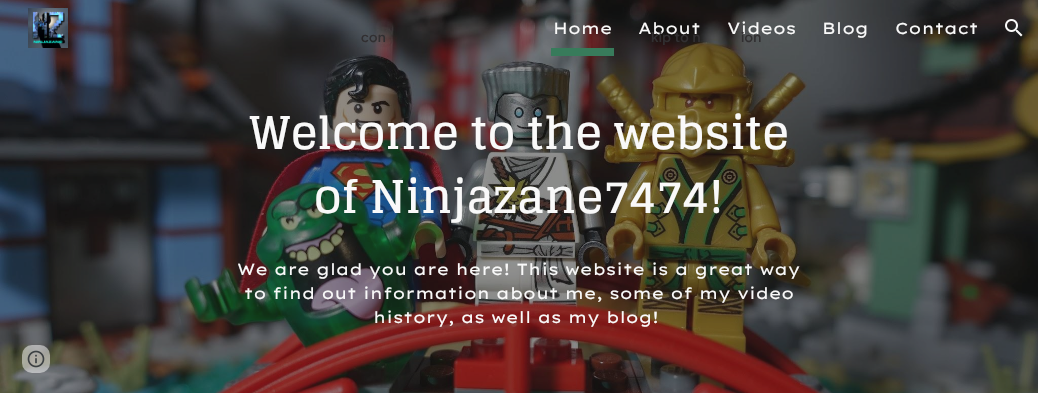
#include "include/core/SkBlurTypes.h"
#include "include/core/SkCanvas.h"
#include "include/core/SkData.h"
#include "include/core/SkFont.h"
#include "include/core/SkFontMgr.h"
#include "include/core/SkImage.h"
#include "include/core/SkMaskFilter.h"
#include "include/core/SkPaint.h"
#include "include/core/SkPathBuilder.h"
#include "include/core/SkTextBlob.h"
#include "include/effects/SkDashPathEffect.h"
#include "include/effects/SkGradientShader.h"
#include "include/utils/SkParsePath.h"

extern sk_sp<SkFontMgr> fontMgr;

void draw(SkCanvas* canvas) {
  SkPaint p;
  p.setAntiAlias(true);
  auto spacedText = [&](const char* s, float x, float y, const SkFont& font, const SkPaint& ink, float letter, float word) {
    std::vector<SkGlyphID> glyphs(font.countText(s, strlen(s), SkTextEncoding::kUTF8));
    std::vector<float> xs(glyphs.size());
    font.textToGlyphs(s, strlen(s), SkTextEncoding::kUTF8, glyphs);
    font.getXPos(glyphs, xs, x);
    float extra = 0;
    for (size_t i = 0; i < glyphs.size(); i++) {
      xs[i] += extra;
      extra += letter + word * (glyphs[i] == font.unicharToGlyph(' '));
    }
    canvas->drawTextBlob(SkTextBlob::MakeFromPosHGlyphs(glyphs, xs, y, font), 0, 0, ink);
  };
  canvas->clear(SK_ColorWHITE);
  canvas->drawImageRect(SkImages::DeferredFromEncodedData(SkData::MakeFromFileName("images/3.png")), SkRect::MakeLTRB(0, 0, 1038, 393), SkSamplingOptions());
  canvas->drawImageRect(SkImages::DeferredFromEncodedData(SkData::MakeFromFileName("images/1.png")), SkRect::MakeLTRB(28, 8, 68, 48), SkSamplingOptions());
  p.setColor(SkColorSetRGB(56, 123, 91));
  canvas->drawRect(SkRect::MakeLTRB(551, 48, 614, 56), p);
  canvas->drawImageRect(SkImages::DeferredFromEncodedData(SkData::MakeFromFileName("images/2.png")), SkRect::MakeLTRB(1005, 19, 1023, 37), SkSamplingOptions());
  p.setColor(SkColorSetARGB(128, 255, 255, 255));
  canvas->drawRoundRect(SkRect::MakeLTRB(22, 345, 50, 373), 10, 10, p);
  canvas->drawImageRect(SkImages::DeferredFromEncodedData(SkData::MakeFromFileName("images/4.png")), SkRect::MakeLTRB(27, 350, 45, 368), SkSamplingOptions());
  SkFont font1(fontMgr->matchFamilyStyle("Lexend Giga", SkFontStyle::Normal()), 16);
  font1.setSubpixel(true);
  p.setColor(SkColorSetRGB(249, 249, 249));
  canvas->drawString("Home", 553, 34, font1, p);
  canvas->drawString("About", 638, 34, font1, p);
  canvas->drawString("Videos", 727, 34, font1, p);
  canvas->drawString("Blog", 822, 34, font1, p);
  canvas->drawString("Contact", 895, 34, font1, p);
  SkFont font2(fontMgr->matchFamilyStyle("Glegoo", SkFontStyle::Bold()), 45.25f);
  font2.setSubpixel(true);
  canvas->drawString("Welcome to the website", 249, 149, font2, p);
  canvas->drawString("of Ninjazane7474!", 314, 213, font2, p);
  canvas->drawString("We are glad you are here! This website is a great way", 237, 275, font1, p);
  canvas->drawString("to find out information about me, some of my video", 244, 299, font1, p);
  canvas->drawString("history, as well as my blog!", 373, 323, font1, p);
  SkFont font3(fontMgr->matchFamilyStyle("Google Sans", SkFontStyle(500, SkFontStyle::kNormal_Width, SkFontStyle::kUpright_Slant)), 14);
  font3.setSubpixel(true);
  p.setColor(SkColorSetRGB(49, 47, 49));
  spacedText("con", 361, 42, font3, p, 0.25f, 0);
  spacedText("kip to n", 651, 42, font3, p, 0.25f, 0);
  spacedText("ion", 741, 42, font3, p, 0.25f, 0);
}
